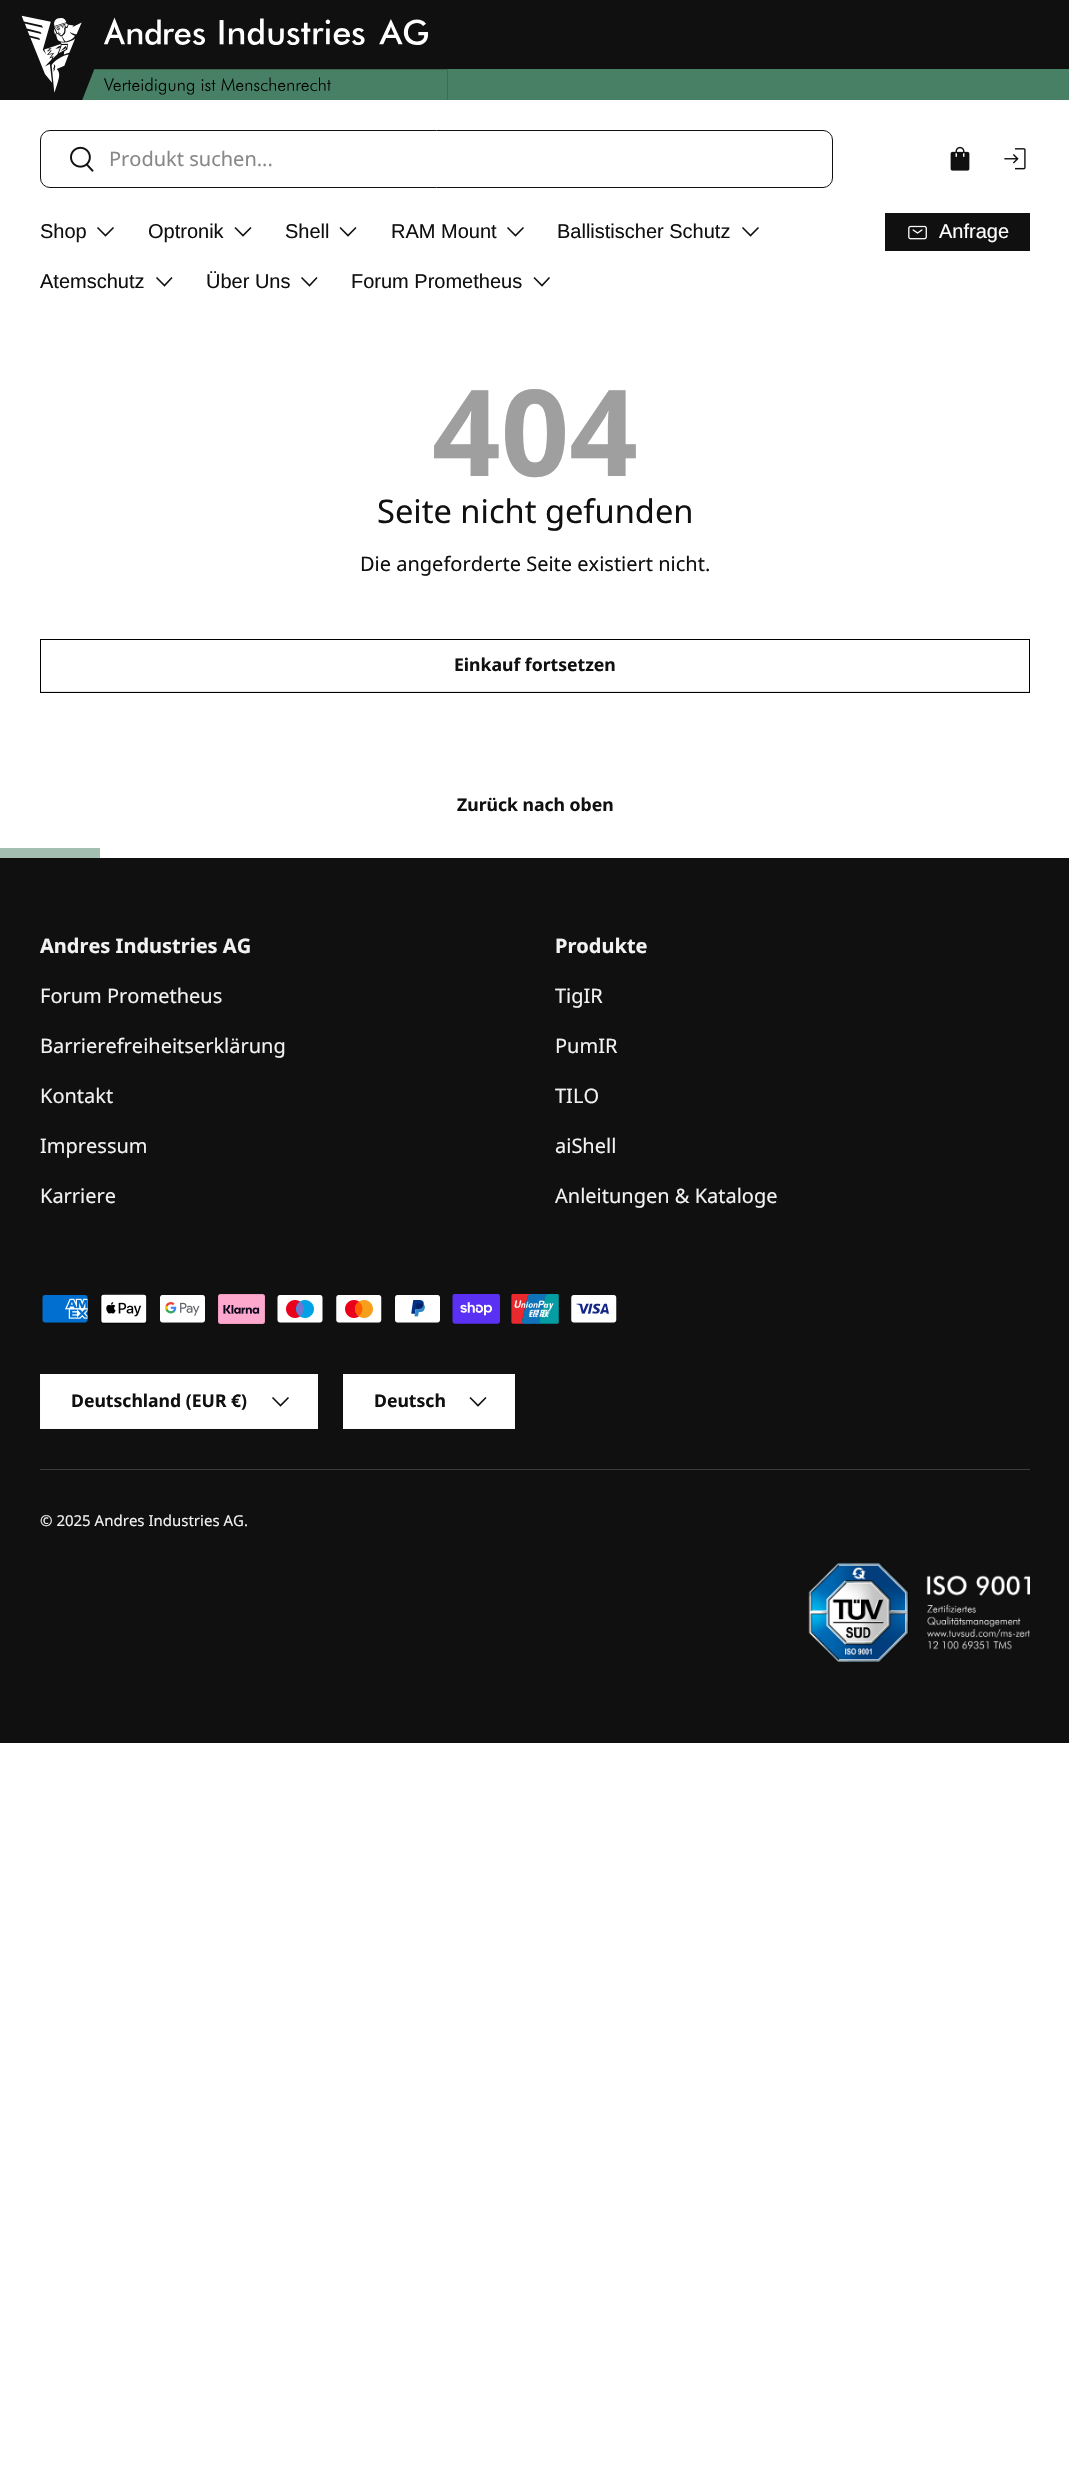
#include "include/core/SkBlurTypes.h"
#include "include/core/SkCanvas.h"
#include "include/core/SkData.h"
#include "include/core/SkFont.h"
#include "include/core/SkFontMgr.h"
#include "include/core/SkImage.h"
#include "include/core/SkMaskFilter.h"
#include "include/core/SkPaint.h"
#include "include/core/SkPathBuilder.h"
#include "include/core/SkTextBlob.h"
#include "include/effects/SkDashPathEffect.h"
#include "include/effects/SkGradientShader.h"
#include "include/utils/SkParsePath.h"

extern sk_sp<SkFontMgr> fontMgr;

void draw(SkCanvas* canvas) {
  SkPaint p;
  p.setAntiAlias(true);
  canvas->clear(SK_ColorWHITE);
  p.setColor(SkColorSetRGB(72, 128, 102));
  canvas->drawRect(SkRect::MakeLTRB(447, 69, 1069, 100), p);
  p.setColor(SkColorSetRGB(16, 16, 16));
  canvas->drawRect(SkRect::MakeLTRB(0, 0, 1069, 69), p);
  canvas->drawImageRect(SkImages::DeferredFromEncodedData(SkData::MakeFromFileName("images/1.png")), SkRect::MakeLTRB(0, 15, 448, 100), SkSamplingOptions());
  p.setStyle(SkPaint::kStroke_Style);
  p.setStrokeWidth(1);
  canvas->drawRoundRect(SkRect::MakeLTRB(40.5f, 130.5f, 832.5f, 187.5f), 9.5f, 9.5f, p);
  canvas->drawImageRect(SkImages::DeferredFromEncodedData(SkData::MakeFromFileName("images/2.png")), SkRect::MakeLTRB(70, 146, 94, 172), SkSamplingOptions());
  canvas->drawImageRect(SkImages::DeferredFromEncodedData(SkData::MakeFromFileName("images/3.png")), SkRect::MakeLTRB(950, 146, 970, 171), SkSamplingOptions());
  canvas->drawImageRect(SkImages::DeferredFromEncodedData(SkData::MakeFromFileName("images/4.png")), SkRect::MakeLTRB(1004, 148, 1026, 170), SkSamplingOptions());
  p.setStrokeWidth(1.6f);
  canvas->drawPath(SkPathBuilder().moveTo(113.5f, 227.5f).lineTo(105.5f, 235.5f).lineTo(97.5f, 227.5f).detach(), p);
  canvas->drawPath(SkPathBuilder().moveTo(251, 227.5f).lineTo(243, 235.5f).lineTo(235, 227.5f).detach(), p);
  canvas->drawPath(SkPathBuilder().moveTo(356, 227.5f).lineTo(348, 235.5f).lineTo(340, 227.5f).detach(), p);
  canvas->drawPath(SkPathBuilder().moveTo(523.5f, 227.5f).lineTo(515.5f, 235.5f).lineTo(507.5f, 227.5f).detach(), p);
  canvas->drawPath(SkPathBuilder().moveTo(758.5f, 227.5f).lineTo(750.5f, 235.5f).lineTo(742.5f, 227.5f).detach(), p);
  canvas->drawPath(SkPathBuilder().moveTo(172, 277.5f).lineTo(164.5f, 285.5f).lineTo(156.5f, 277.5f).detach(), p);
  canvas->drawPath(SkPathBuilder().moveTo(317, 277.5f).lineTo(309.5f, 285.5f).lineTo(301.5f, 277.5f).detach(), p);
  canvas->drawPath(SkPathBuilder().moveTo(549.5f, 277.5f).lineTo(542, 285.5f).lineTo(534, 277.5f).detach(), p);
  p.setStyle(SkPaint::kFill_Style);
  {
    const SkColor colors[] = {SkColorSetRGB(60, 60, 60), SkColorSetRGB(16, 16, 16), SkColorSetRGB(16, 16, 16)};
    const float stops[] = {0.6f, 0.6f, 1};
    const SkPoint ends[] = {{616, 182}, {1019, 282}};
    p.setShader(SkGradientShader::MakeLinear(ends, colors, stops, 3, SkTileMode::kClamp));
    p.setAlpha(255);
  }
  canvas->drawRect(SkRect::MakeLTRB(888, 216, 1027, 248), p);
  p.setStyle(SkPaint::kStroke_Style);
  p.setStrokeWidth(3);
  p.setShader(nullptr);
  p.setColor(SkColorSetRGB(16, 16, 16));
  canvas->drawRect(SkRect::MakeLTRB(886.5f, 214.5f, 1028.5f, 249.5f), p);
  canvas->drawImageRect(SkImages::DeferredFromEncodedData(SkData::MakeFromFileName("images/5.png")), SkRect::MakeLTRB(908, 225, 927, 240), SkSamplingOptions());
  p.setStyle(SkPaint::kFill_Style);
  p.setColor(SkColorSetRGB(227, 227, 227));
  canvas->drawRect(SkRect::MakeLTRB(41, 691, 1029, 692), p);
  p.setStyle(SkPaint::kStroke_Style);
  p.setStrokeWidth(1);
  p.setColor(SK_ColorBLACK);
  canvas->drawRect(SkRect::MakeLTRB(40.5f, 639.5f, 1029.5f, 692.5f), p);
  p.setStyle(SkPaint::kFill_Style);
  p.setColor(SkColorSetRGB(162, 191, 178));
  canvas->drawRect(SkRect::MakeLTRB(0, 848, 100, 858), p);
  p.setColor(SkColorSetRGB(16, 16, 16));
  canvas->drawRect(SkRect::MakeLTRB(0, 858, 1069, 1743), p);
  canvas->drawImageRect(SkImages::DeferredFromEncodedData(SkData::MakeFromFileName("images/6.png")), SkRect::MakeLTRB(42, 1295, 88, 1323), SkSamplingOptions());
  canvas->drawImageRect(SkImages::DeferredFromEncodedData(SkData::MakeFromFileName("images/7.png")), SkRect::MakeLTRB(100, 1294, 147, 1324), SkSamplingOptions());
  canvas->drawImageRect(SkImages::DeferredFromEncodedData(SkData::MakeFromFileName("images/8.png")), SkRect::MakeLTRB(160, 1295, 205, 1323), SkSamplingOptions());
  canvas->drawImageRect(SkImages::DeferredFromEncodedData(SkData::MakeFromFileName("images/9.png")), SkRect::MakeLTRB(218, 1294, 265, 1324), SkSamplingOptions());
  canvas->drawImageRect(SkImages::DeferredFromEncodedData(SkData::MakeFromFileName("images/10.png")), SkRect::MakeLTRB(277, 1295, 323, 1323), SkSamplingOptions());
  canvas->drawImageRect(SkImages::DeferredFromEncodedData(SkData::MakeFromFileName("images/11.png")), SkRect::MakeLTRB(336, 1295, 382, 1323), SkSamplingOptions());
  canvas->drawImageRect(SkImages::DeferredFromEncodedData(SkData::MakeFromFileName("images/12.png")), SkRect::MakeLTRB(395, 1295, 440, 1323), SkSamplingOptions());
  canvas->drawImageRect(SkImages::DeferredFromEncodedData(SkData::MakeFromFileName("images/13.png")), SkRect::MakeLTRB(452, 1294, 500, 1324), SkSamplingOptions());
  canvas->drawImageRect(SkImages::DeferredFromEncodedData(SkData::MakeFromFileName("images/14.png")), SkRect::MakeLTRB(511, 1294, 559, 1324), SkSamplingOptions());
  canvas->drawImageRect(SkImages::DeferredFromEncodedData(SkData::MakeFromFileName("images/15.png")), SkRect::MakeLTRB(571, 1295, 617, 1323), SkSamplingOptions());
  p.setColor(SK_ColorWHITE);
  canvas->drawRect(SkRect::MakeLTRB(40.5f, 1374.5f, 317.5f, 1428.5f), p);
  p.setStyle(SkPaint::kStroke_Style);
  p.setColor(SkColorSetRGB(252, 252, 252));
  canvas->drawRect(SkRect::MakeLTRB(40.5f, 1374.5f, 317.5f, 1428.5f), p);
  p.setStrokeWidth(1.6f);
  p.setColor(SkColorSetRGB(16, 16, 16));
  canvas->drawPath(SkPathBuilder().moveTo(288.5f, 1397.5f).lineTo(280.5f, 1405.5f).lineTo(272.5f, 1397.5f).detach(), p);
  p.setStyle(SkPaint::kFill_Style);
  p.setColor(SK_ColorWHITE);
  canvas->drawRect(SkRect::MakeLTRB(343.5f, 1374.5f, 514.5f, 1428.5f), p);
  p.setStyle(SkPaint::kStroke_Style);
  p.setStrokeWidth(1);
  p.setColor(SkColorSetRGB(252, 252, 252));
  canvas->drawRect(SkRect::MakeLTRB(343.5f, 1374.5f, 514.5f, 1428.5f), p);
  p.setStrokeWidth(1.6f);
  p.setColor(SkColorSetRGB(16, 16, 16));
  canvas->drawPath(SkPathBuilder().moveTo(486, 1397.5f).lineTo(478, 1405.5f).lineTo(470, 1397.5f).detach(), p);
  p.setStyle(SkPaint::kFill_Style);
  p.setColor(SkColorSetRGB(61, 61, 61));
  canvas->drawRect(SkRect::MakeLTRB(40, 1469, 1030, 1470), p);
  canvas->drawImageRect(SkImages::DeferredFromEncodedData(SkData::MakeFromFileName("images/16.png")), SkRect::MakeLTRB(808, 1562, 1030, 1663), SkSamplingOptions());
  SkFont font1(fontMgr->matchFamilyStyle("Noto Sans", SkFontStyle::Normal()), 20);
  font1.setSubpixel(true);
  p.setColor(SkColorSetRGB(136, 136, 136));
  canvas->drawString("Produkt suchen...", 109, 166, font1, p);
  SkFont font2(fontMgr->matchFamilyStyle("Liberation Sans", SkFontStyle::Normal()), 20);
  font2.setSubpixel(true);
  p.setColor(SkColorSetRGB(16, 16, 16));
  canvas->drawString("Shop", 40, 238, font2, p);
  canvas->drawString("Optronik", 148, 238, font2, p);
  canvas->drawString("Shell", 285, 238, font2, p);
  canvas->drawString("RAM Mount", 391, 238, font2, p);
  canvas->drawString("Ballistischer Schutz", 557, 238, font2, p);
  canvas->drawString("Atemschutz", 40, 288, font2, p);
  canvas->drawString("Über Uns", 206, 288, font2, p);
  canvas->drawString("Forum Prometheus", 351, 288, font2, p);
  p.setColor(SK_ColorWHITE);
  canvas->drawString("Anfrage", 939, 238, font2, p);
  SkFont font3(fontMgr->matchFamilyStyle("Noto Sans", SkFontStyle::Bold()), 120);
  font3.setSubpixel(true);
  p.setColor(SkColorSetRGB(159, 159, 159));
  canvas->drawString("404", 432, 476, font3, p);
  SkFont font4(fontMgr->matchFamilyStyle("Noto Sans", SkFontStyle::Normal()), 32.6f);
  font4.setSubpixel(true);
  p.setColor(SkColorSetRGB(16, 16, 16));
  canvas->drawString("Seite nicht gefunden", 377, 523, font4, p);
  canvas->drawString("Die angeforderte Seite existiert nicht.", 360, 571, font1, p);
  SkFont font5(fontMgr->matchFamilyStyle("Noto Sans", SkFontStyle::Bold()), 17.6f);
  font5.setSubpixel(true);
  canvas->drawString("Einkauf fortsetzen", 454, 671, font5, p);
  canvas->drawString("Zurück nach oben", 457, 811, font5, p);
  SkFont font6(fontMgr->matchFamilyStyle("Noto Sans", SkFontStyle::Bold()), 20);
  font6.setSubpixel(true);
  p.setColor(SkColorSetRGB(242, 242, 242));
  canvas->drawString("Andres Industries AG", 40, 953, font6, p);
  canvas->drawString("Forum Prometheus", 40, 1003, font1, p);
  canvas->drawString("Barrierefreiheitserklärung", 40, 1053, font1, p);
  canvas->drawString("Kontakt", 40, 1103, font1, p);
  canvas->drawString("Impressum", 40, 1153, font1, p);
  canvas->drawString("Karriere", 40, 1203, font1, p);
  canvas->drawString("Produkte", 555, 953, font6, p);
  canvas->drawString("TigIR", 555, 1003, font1, p);
  canvas->drawString("PumIR", 555, 1053, font1, p);
  canvas->drawString("TILO", 555, 1103, font1, p);
  canvas->drawString("aiShell", 555, 1153, font1, p);
  canvas->drawString("Anleitungen & Kataloge", 555, 1203, font1, p);
  p.setColor(SkColorSetRGB(16, 16, 16));
  canvas->drawString("Deutschland (EUR €)", 71, 1407, font5, p);
  canvas->drawString("Deutsch", 374, 1407, font5, p);
  SkFont font7(fontMgr->matchFamilyStyle("Noto Sans", SkFontStyle::Normal()), 15);
  font7.setSubpixel(true);
  p.setColor(SkColorSetRGB(242, 242, 242));
  canvas->drawString("© 2025 Andres Industries AG.", 40, 1526, font7, p);
}
